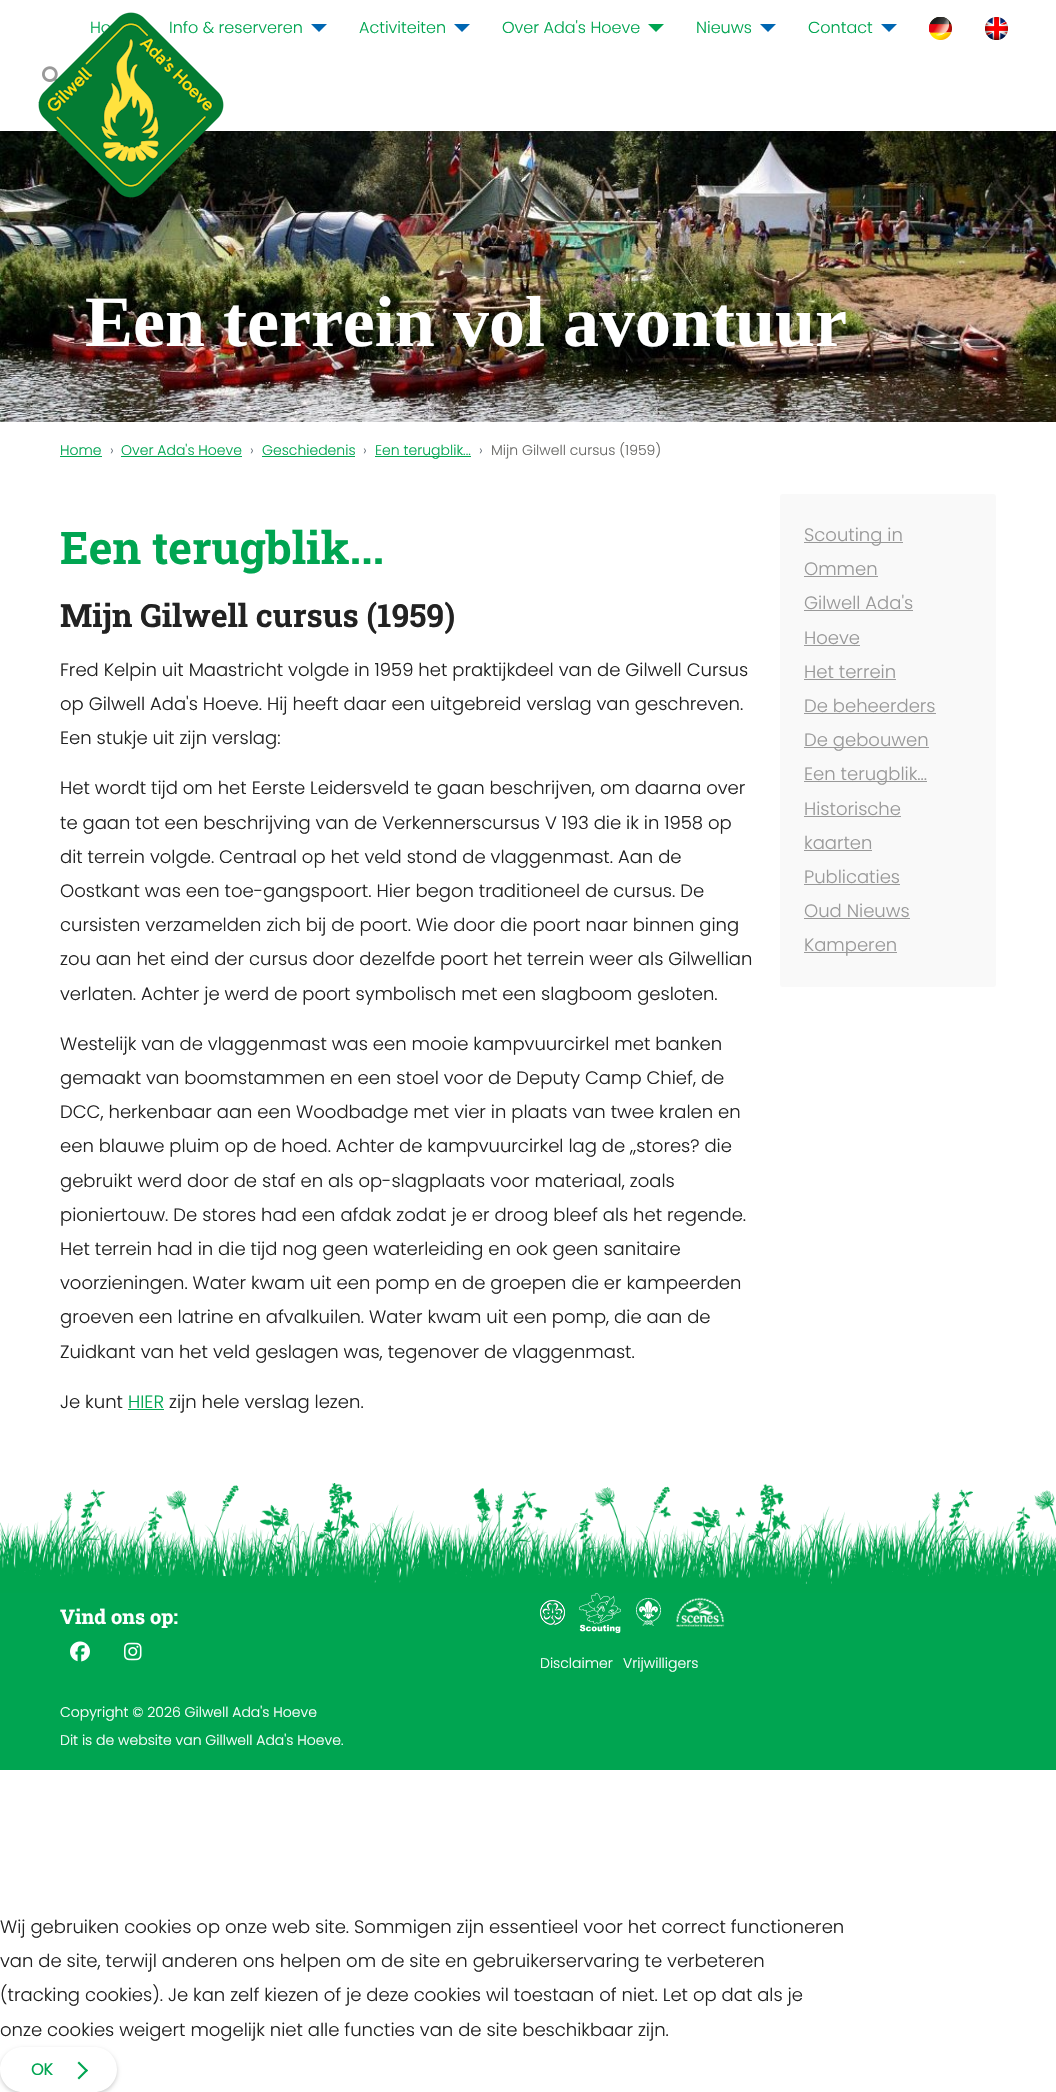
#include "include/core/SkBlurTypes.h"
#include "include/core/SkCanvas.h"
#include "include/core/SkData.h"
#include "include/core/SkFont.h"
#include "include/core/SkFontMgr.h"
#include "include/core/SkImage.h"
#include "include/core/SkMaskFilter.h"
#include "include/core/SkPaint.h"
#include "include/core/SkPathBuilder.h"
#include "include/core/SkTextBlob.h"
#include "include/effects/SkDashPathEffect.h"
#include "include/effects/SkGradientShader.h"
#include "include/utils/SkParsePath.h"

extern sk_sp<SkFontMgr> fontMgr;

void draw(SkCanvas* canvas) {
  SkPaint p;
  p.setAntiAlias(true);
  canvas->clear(SK_ColorWHITE);
  canvas->drawImageRect(SkImages::DeferredFromEncodedData(SkData::MakeFromFileName("images/5.png")), SkRect::MakeLTRB(0, 131, 1056, 422), SkSamplingOptions());
  p.setColor(SkColorSetARGB(51, 0, 0, 0));
  p.setMaskFilter(SkMaskFilter::MakeBlur(kNormal_SkBlurStyle, 2.5f));
  canvas->drawRect(SkRect::MakeLTRB(0, 0, 1056, 131), p);
  p.setMaskFilter(nullptr);
  p.setColor(SK_ColorWHITE);
  canvas->drawRect(SkRect::MakeLTRB(0, 0, 1056, 131), p);
  p.setColor(SkColorSetRGB(0, 102, 178));
  canvas->drawPath(SkPathBuilder().moveTo(311, 24).lineTo(327, 24).lineTo(319, 32).close().detach(), p);
  canvas->drawPath(SkPathBuilder().moveTo(454, 24).lineTo(470, 24).lineTo(462, 32).close().detach(), p);
  p.setColor(SkColorSetRGB(0, 165, 81));
  canvas->drawPath(SkPathBuilder().moveTo(648, 24).lineTo(664, 24).lineTo(656, 32).close().detach(), p);
  p.setColor(SkColorSetRGB(0, 102, 178));
  canvas->drawPath(SkPathBuilder().moveTo(760, 24).lineTo(776, 24).lineTo(768, 32).close().detach(), p);
  canvas->drawPath(SkPathBuilder().moveTo(881, 24).lineTo(897, 24).lineTo(889, 32).close().detach(), p);
  canvas->drawImageRect(SkImages::DeferredFromEncodedData(SkData::MakeFromFileName("images/2.png")), SkRect::MakeLTRB(929, 17, 952, 40), SkSamplingOptions());
  canvas->drawImageRect(SkImages::DeferredFromEncodedData(SkData::MakeFromFileName("images/3.png")), SkRect::MakeLTRB(985, 17, 1008, 40), SkSamplingOptions());
  canvas->drawImageRect(SkImages::DeferredFromEncodedData(SkData::MakeFromFileName("images/4.png")), SkRect::MakeLTRB(42, 66, 58, 82), SkSamplingOptions());
  p.setColor(SkColorSetRGB(0, 165, 81));
  canvas->drawRect(SkRect::MakeLTRB(60, 456, 102, 457), p);
  canvas->drawRect(SkRect::MakeLTRB(121, 456, 242, 457), p);
  canvas->drawRect(SkRect::MakeLTRB(262, 456, 355, 457), p);
  canvas->drawRect(SkRect::MakeLTRB(375, 456, 471, 457), p);
  canvas->drawRect(SkRect::MakeLTRB(128, 1409, 164, 1410), p);
  p.setColor(SkColorSetRGB(249, 249, 249));
  canvas->drawRoundRect(SkRect::MakeLTRB(780, 494, 996, 987), 3, 3, p);
  p.setColor(SkColorSetRGB(153, 153, 153));
  canvas->drawRect(SkRect::MakeLTRB(804, 542, 903, 543), p);
  canvas->drawRect(SkRect::MakeLTRB(804, 576, 878, 577), p);
  canvas->drawRect(SkRect::MakeLTRB(804, 610, 913, 611), p);
  canvas->drawRect(SkRect::MakeLTRB(804, 645, 860, 646), p);
  canvas->drawRect(SkRect::MakeLTRB(804, 679, 896, 680), p);
  canvas->drawRect(SkRect::MakeLTRB(804, 713, 936, 714), p);
  canvas->drawRect(SkRect::MakeLTRB(804, 747, 929, 748), p);
  canvas->drawRect(SkRect::MakeLTRB(804, 781, 927, 782), p);
  canvas->drawRect(SkRect::MakeLTRB(804, 816, 901, 817), p);
  canvas->drawRect(SkRect::MakeLTRB(804, 850, 872, 851), p);
  canvas->drawRect(SkRect::MakeLTRB(804, 884, 900, 885), p);
  canvas->drawRect(SkRect::MakeLTRB(804, 918, 910, 919), p);
  canvas->drawRect(SkRect::MakeLTRB(804, 952, 897, 953), p);
  canvas->drawImageRect(SkImages::DeferredFromEncodedData(SkData::MakeFromFileName("images/6.png")), SkRect::MakeLTRB(0, 1483, 1056, 1593), SkSamplingOptions());
  p.setColor(SkColorSetRGB(0, 165, 81));
  canvas->drawRect(SkRect::MakeLTRB(0, 1593, 1056, 1770), p);
  canvas->drawImageRect(SkImages::DeferredFromEncodedData(SkData::MakeFromFileName("images/7.png")), SkRect::MakeLTRB(70, 1641, 90, 1662), SkSamplingOptions());
  canvas->drawImageRect(SkImages::DeferredFromEncodedData(SkData::MakeFromFileName("images/8.png")), SkRect::MakeLTRB(124, 1642, 142, 1661), SkSamplingOptions());
  canvas->drawImageRect(SkImages::DeferredFromEncodedData(SkData::MakeFromFileName("images/9.png")), SkRect::MakeLTRB(540, 1600, 565, 1625), SkSamplingOptions());
  canvas->drawImageRect(SkImages::DeferredFromEncodedData(SkData::MakeFromFileName("images/10.png")), SkRect::MakeLTRB(579, 1593, 621, 1633), SkSamplingOptions());
  canvas->drawImageRect(SkImages::DeferredFromEncodedData(SkData::MakeFromFileName("images/11.png")), SkRect::MakeLTRB(636, 1598, 661, 1626), SkSamplingOptions());
  canvas->drawImageRect(SkImages::DeferredFromEncodedData(SkData::MakeFromFileName("images/12.png")), SkRect::MakeLTRB(676, 1597, 725, 1627), SkSamplingOptions());
  canvas->save();
  canvas->clipPath(SkPathBuilder(SkPathFillType::kEvenOdd).moveTo(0, 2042).lineTo(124, 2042).lineTo(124, 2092).lineTo(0, 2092).close().moveTo(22.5f, 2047).lineTo(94.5f, 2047).cubicTo(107, 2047, 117, 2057, 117, 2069.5f).cubicTo(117, 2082, 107, 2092, 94.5f, 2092).lineTo(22.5f, 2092).cubicTo(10, 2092, 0, 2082, 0, 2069.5f).cubicTo(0, 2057, 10, 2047, 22.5f, 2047).close().detach(), true);
  p.setColor(SkColorSetARGB(51, 0, 0, 0));
  p.setMaskFilter(SkMaskFilter::MakeBlur(kNormal_SkBlurStyle, 2));
  canvas->drawRoundRect(SkRect::MakeLTRB(0, 2049, 117, 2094), 22.5f, 22.5f, p);
  p.setMaskFilter(nullptr);
  canvas->restore();
  p.setColor(SkColorSetRGB(0, 165, 81));
  canvas->drawPath(SkPathBuilder().moveTo(79, 2061.5f).lineTo(88, 2070.5f).lineTo(86.5f, 2072).lineTo(77.5f, 2063).close().detach(), p);
  canvas->drawPath(SkPathBuilder().moveTo(86.5f, 2069).lineTo(88, 2070.5f).lineTo(79, 2079.5f).lineTo(77.5f, 2078).close().detach(), p);
  SkFont font1(fontMgr->matchFamilyStyle("Poppins", SkFontStyle(300, SkFontStyle::kNormal_Width, SkFontStyle::kUpright_Slant)), 16);
  font1.setSubpixel(true);
  canvas->drawString("Ho", 90, 33, font1, p);
  canvas->drawString("Info & reserveren", 169, 33, font1, p);
  canvas->drawImageRect(SkImages::DeferredFromEncodedData(SkData::MakeFromFileName("images/1.png")), SkRect::MakeLTRB(38, 12, 224, 198), SkSamplingOptions());
  canvas->drawString("Activiteiten", 359, 33, font1, p);
  canvas->drawString("Over Ada's Hoeve", 502, 33, font1, p);
  canvas->drawString("Nieuws", 696, 33, font1, p);
  canvas->drawString("Contact", 808, 33, font1, p);
  SkFont font2(fontMgr->matchFamilyStyle("Liberation Serif", SkFontStyle::Bold()), 72);
  font2.setSubpixel(true);
  p.setColor(SK_ColorWHITE);
  canvas->drawString("Een terrein vol avontuur", 85, 346, font2, p);
  SkFont font3(fontMgr->matchFamilyStyle("Poppins", SkFontStyle(300, SkFontStyle::kNormal_Width, SkFontStyle::kUpright_Slant)), 14);
  font3.setSubpixel(true);
  p.setColor(SkColorSetRGB(0, 165, 81));
  canvas->drawString("Home", 60, 455, font3, p);
  p.setColor(SkColorSetRGB(108, 117, 125));
  canvas->drawString("›", 110, 455, font3, p);
  p.setColor(SkColorSetRGB(0, 165, 81));
  canvas->drawString("Over Ada's Hoeve", 121, 455, font3, p);
  p.setColor(SkColorSetRGB(108, 117, 125));
  canvas->drawString("›", 250, 455, font3, p);
  p.setColor(SkColorSetRGB(0, 165, 81));
  canvas->drawString("Geschiedenis", 262, 455, font3, p);
  p.setColor(SkColorSetRGB(108, 117, 125));
  canvas->drawString("›", 363, 455, font3, p);
  p.setColor(SkColorSetRGB(0, 165, 81));
  canvas->drawString("Een terugblik...", 375, 455, font3, p);
  p.setColor(SkColorSetRGB(108, 117, 125));
  canvas->drawString("›", 479, 455, font3, p);
  p.setColor(SkColorSetRGB(105, 105, 102));
  canvas->drawString("Mijn Gilwell cursus (1959)", 491, 455, font3, p);
  SkFont font4(fontMgr->matchFamilyStyle("Roboto Slab", SkFontStyle::Bold()), 45);
  font4.setSubpixel(true);
  p.setColor(SkColorSetRGB(0, 165, 81));
  canvas->drawString("Een terugblik...", 60, 564, font4, p);
  SkFont font5(fontMgr->matchFamilyStyle("Roboto Slab", SkFontStyle::Bold()), 32);
  font5.setSubpixel(true);
  p.setColor(SkColorSetRGB(34, 34, 34));
  canvas->drawString("Mijn Gilwell cursus (1959)", 60, 627, font5, p);
  SkFont font6(fontMgr->matchFamilyStyle("Poppins", SkFontStyle(300, SkFontStyle::kNormal_Width, SkFontStyle::kUpright_Slant)), 18);
  font6.setSubpixel(true);
  canvas->drawString("Fred Kelpin uit Maastricht volgde in 1959 het praktijkdeel van de Gilwell Cursus", 60, 676, font6, p);
  canvas->drawString("op Gilwell Ada's Hoeve. Hij heeft daar een uitgebreid verslag van geschreven.", 60, 710, font6, p);
  canvas->drawString("Een stukje uit zijn verslag:", 60, 744, font6, p);
  canvas->drawString("Het wordt tijd om het Eerste Leidersveld te gaan beschrijven, om daarna over", 60, 794, font6, p);
  canvas->drawString("te gaan tot een beschrijving van de Verkennerscursus V 193 die ik in 1958 op", 60, 829, font6, p);
  canvas->drawString("dit terrein volgde. Centraal op het veld stond de vlaggenmast. Aan de", 60, 863, font6, p);
  canvas->drawString("Oostkant was een toe-gangspoort. Hier begon traditioneel de cursus. De", 60, 897, font6, p);
  canvas->drawString("cursisten verzamelden zich bij de poort. Wie door die poort naar binnen ging", 60, 931, font6, p);
  canvas->drawString("zou aan het eind der cursus door dezelfde poort het terrein weer als Gilwellian", 60, 965, font6, p);
  canvas->drawString("verlaten. Achter je werd de poort symbolisch met een slagboom gesloten.", 60, 1000, font6, p);
  canvas->drawString("Westelijk van de vlaggenmast was een mooie kampvuurcirkel met banken", 60, 1050, font6, p);
  canvas->drawString("gemaakt van boomstammen en een stoel voor de Deputy Camp Chief, de", 60, 1084, font6, p);
  canvas->drawString("DCC, herkenbaar aan een Woodbadge met vier in plaats van twee kralen en", 60, 1118, font6, p);
  canvas->drawString("een blauwe pluim op de hoed. Achter de kampvuurcirkel lag de „stores? die", 60, 1152, font6, p);
  canvas->drawString("gebruikt werd door de staf en als op-slagplaats voor materiaal, zoals", 60, 1187, font6, p);
  canvas->drawString("pioniertouw. De stores had een afdak zodat je er droog bleef als het regende.", 60, 1221, font6, p);
  canvas->drawString("Het terrein had in die tijd nog geen waterleiding en ook geen sanitaire", 60, 1255, font6, p);
  canvas->drawString("voorzieningen. Water kwam uit een pomp en de groepen die er kampeerden", 60, 1289, font6, p);
  canvas->drawString("groeven een latrine en afvalkuilen. Water kwam uit een pomp, die aan de", 60, 1323, font6, p);
  canvas->drawString("Zuidkant van het veld geslagen was, tegenover de vlaggenmast.", 60, 1358, font6, p);
  canvas->drawString("Je kunt", 60, 1408, font6, p);
  p.setColor(SkColorSetRGB(0, 165, 81));
  canvas->drawString("HIER", 128, 1408, font6, p);
  p.setColor(SkColorSetRGB(34, 34, 34));
  canvas->drawString("zijn hele verslag lezen.", 169, 1408, font6, p);
  p.setColor(SkColorSetRGB(153, 153, 153));
  canvas->drawString("Scouting in", 804, 541, font6, p);
  canvas->drawString("Ommen", 804, 575, font6, p);
  canvas->drawString("Gilwell Ada's", 804, 609, font6, p);
  canvas->drawString("Hoeve", 804, 644, font6, p);
  canvas->drawString("Het terrein", 804, 678, font6, p);
  canvas->drawString("De beheerders", 804, 712, font6, p);
  canvas->drawString("De gebouwen", 804, 746, font6, p);
  canvas->drawString("Een terugblik...", 804, 780, font6, p);
  canvas->drawString("Historische", 804, 815, font6, p);
  canvas->drawString("kaarten", 804, 849, font6, p);
  canvas->drawString("Publicaties", 804, 883, font6, p);
  canvas->drawString("Oud Nieuws", 804, 917, font6, p);
  canvas->drawString("Kamperen", 804, 951, font6, p);
  SkFont font7(fontMgr->matchFamilyStyle("Roboto Slab", SkFontStyle::Bold()), 20);
  font7.setSubpixel(true);
  p.setColor(SK_ColorWHITE);
  canvas->drawString("Vind ons op:", 60, 1624, font7, p);
  canvas->drawString("Copyright © 2026 Gilwell Ada's Hoeve", 60, 1717, font3, p);
  canvas->drawString("Dit is de website van Gillwell Ada's Hoeve.", 60, 1745, font3, p);
  canvas->drawString("Disclaimer", 540, 1668, font3, p);
  canvas->drawString("Vrijwilligers", 623, 1668, font3, p);
  p.setColor(SkColorSetRGB(34, 34, 34));
  canvas->drawString("Wij gebruiken cookies op onze web site. Sommigen zijn essentieel voor het correct functioneren", 0, 1933, font6, p);
  canvas->drawString("van de site, terwijl anderen ons helpen om de site en gebruikerservaring te verbeteren", 0, 1967, font6, p);
  canvas->drawString("(tracking cookies). Je kan zelf kiezen of je deze cookies wil toestaan of niet. Let op dat als je", 0, 2001, font6, p);
  canvas->drawString("onze cookies weigert mogelijk niet alle functies van de site beschikbaar zijn.", 0, 2036, font6, p);
  SkFont font8(fontMgr->matchFamilyStyle("Poppins", SkFontStyle::Bold()), 16);
  font8.setSubpixel(true);
  p.setColor(SkColorSetRGB(0, 165, 81));
  canvas->drawString("OK", 31, 2075, font8, p);
}
